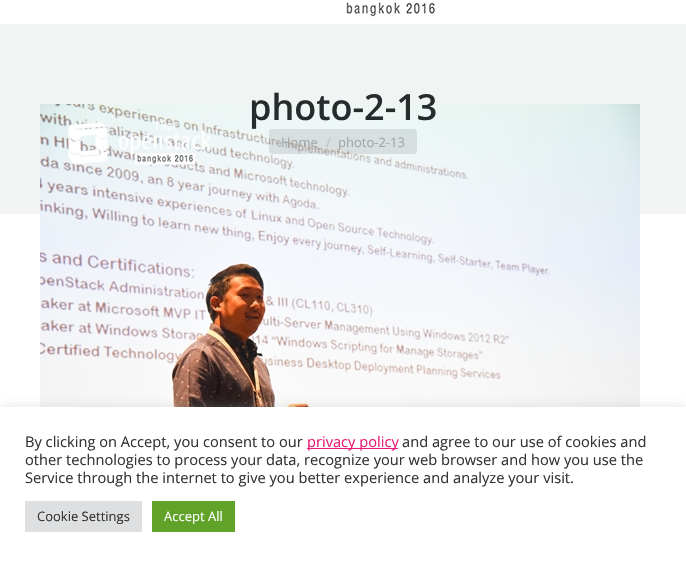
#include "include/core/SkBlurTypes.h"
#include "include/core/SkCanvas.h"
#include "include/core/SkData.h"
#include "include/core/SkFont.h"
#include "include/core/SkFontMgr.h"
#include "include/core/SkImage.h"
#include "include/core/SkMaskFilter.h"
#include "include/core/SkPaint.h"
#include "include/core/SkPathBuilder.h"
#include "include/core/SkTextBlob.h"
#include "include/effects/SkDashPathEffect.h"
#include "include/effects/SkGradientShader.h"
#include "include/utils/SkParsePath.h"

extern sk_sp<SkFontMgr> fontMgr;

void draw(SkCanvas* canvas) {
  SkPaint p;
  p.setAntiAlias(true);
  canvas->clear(SK_ColorWHITE);
  canvas->drawImageRect(SkImages::DeferredFromEncodedData(SkData::MakeFromFileName("images/1.png")), SkRect::MakeLTRB(346, 2, 435, 17), SkSamplingOptions());
  p.setColor(SkColorSetRGB(242, 243, 243));
  canvas->drawRect(SkRect::MakeLTRB(0, 24, 686, 214), p);
  canvas->drawImageRect(SkImages::DeferredFromEncodedData(SkData::MakeFromFileName("images/2.png")), SkRect::MakeLTRB(40, 104, 640, 407), SkSamplingOptions());
  p.setColor(SkColorSetARGB(26, 15, 18, 19));
  canvas->drawRoundRect(SkRect::MakeLTRB(269, 129, 417, 154), 3, 3, p);
  p.setColor(SkColorSetARGB(77, 172, 171, 171));
  p.setMaskFilter(SkMaskFilter::MakeBlur(kNormal_SkBlurStyle, 5));
  canvas->drawRect(SkRect::MakeLTRB(0, 406, 686, 561), p);
  p.setMaskFilter(nullptr);
  p.setColor(SK_ColorWHITE);
  canvas->drawRect(SkRect::MakeLTRB(0, 407, 686, 562), p);
  p.setColor(SkColorSetRGB(234, 29, 118));
  canvas->drawRect(SkRect::MakeLTRB(307, 448, 398, 449), p);
  p.setColor(SkColorSetRGB(222, 223, 224));
  canvas->drawRect(SkRect::MakeLTRB(25, 501, 142, 532), p);
  p.setColor(SkColorSetRGB(97, 162, 41));
  canvas->drawRect(SkRect::MakeLTRB(152, 501, 235, 532), p);
  SkFont font1(fontMgr->matchFamilyStyle("Open Sans", SkFontStyle(600, SkFontStyle::kNormal_Width, SkFontStyle::kUpright_Slant)), 36);
  font1.setSubpixel(true);
  p.setColor(SkColorSetRGB(38, 43, 46));
  canvas->drawString("photo-2-13", 249, 120, font1, p);
  SkFont font2(fontMgr->matchFamilyStyle("Open Sans", SkFontStyle::Normal()), 13);
  font2.setSubpixel(true);
  p.setColor(SkColorSetRGB(162, 165, 166));
  canvas->drawString("Home", 281, 147, font2, p);
  p.setColor(SkColorSetRGB(189, 195, 195));
  canvas->drawString("/", 326, 147, font2, p);
  p.setColor(SkColorSetRGB(162, 165, 166));
  canvas->drawString("photo-2-13", 338, 147, font2, p);
  SkFont font3(fontMgr->matchFamilyStyle("Open Sans", SkFontStyle::Normal()), 14.65f);
  font3.setSubpixel(true);
  p.setColor(SkColorSetRGB(51, 51, 51));
  canvas->drawString("By clicking on Accept, you consent to our", 25, 447, font3, p);
  p.setColor(SkColorSetRGB(234, 29, 118));
  canvas->drawString("privacy policy", 307, 447, font3, p);
  p.setColor(SkColorSetRGB(51, 51, 51));
  canvas->drawString("and agree to our use of cookies and", 402, 447, font3, p);
  canvas->drawString("other technologies to process your data, recognize your web browser and how you use the", 25, 465, font3, p);
  canvas->drawString("Service through the internet to give you better experience and analyze your visit.", 25, 483, font3, p);
  canvas->drawString("Cookie Settings", 37, 521, font2, p);
  p.setColor(SK_ColorWHITE);
  canvas->drawString("Accept All", 164, 521, font2, p);
}
